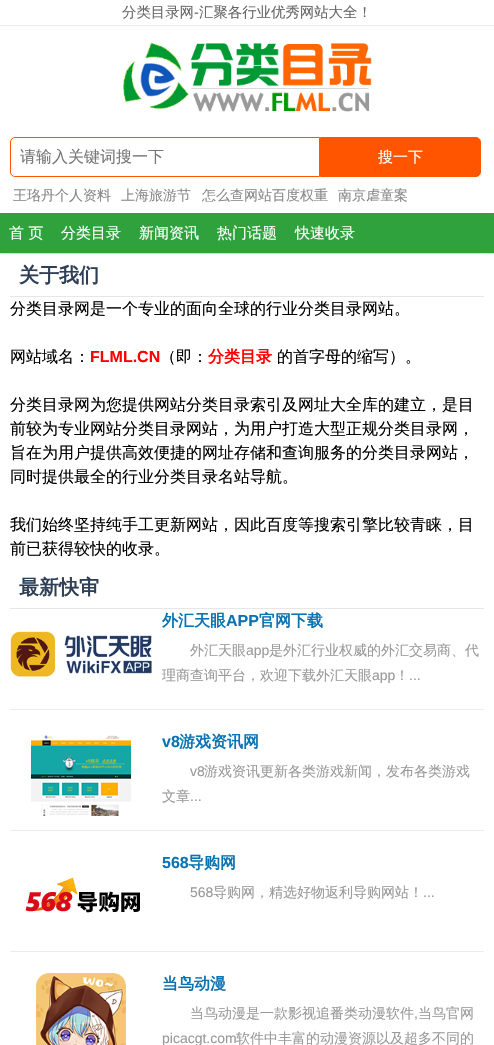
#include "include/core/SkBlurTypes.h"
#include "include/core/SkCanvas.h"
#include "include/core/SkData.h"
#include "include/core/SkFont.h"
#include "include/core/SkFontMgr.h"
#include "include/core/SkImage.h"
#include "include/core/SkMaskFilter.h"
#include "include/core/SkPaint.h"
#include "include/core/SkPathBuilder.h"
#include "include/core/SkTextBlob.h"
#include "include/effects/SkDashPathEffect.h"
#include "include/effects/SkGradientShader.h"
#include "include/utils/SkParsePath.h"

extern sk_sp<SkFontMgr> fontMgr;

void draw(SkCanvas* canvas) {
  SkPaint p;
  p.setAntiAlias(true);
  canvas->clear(SK_ColorWHITE);
  p.setColor(SkColorSetRGB(234, 234, 234));
  canvas->drawRect(SkRect::MakeLTRB(0, 253, 494, 254), p);
  canvas->drawRect(SkRect::MakeLTRB(0, 25, 494, 26), p);
  canvas->drawImageRect(SkImages::DeferredFromEncodedData(SkData::MakeFromFileName("images/1.png")), SkRect::MakeLTRB(122, 42, 372, 112), SkSamplingOptions());
  p.setStyle(SkPaint::kStroke_Style);
  p.setStrokeWidth(1);
  p.setColor(SkColorSetRGB(255, 85, 0));
  canvas->drawPath(SkPathBuilder().moveTo(15, 137.5f).lineTo(319.5f, 137.5f).lineTo(319.5f, 176.5f).lineTo(15, 176.5f).cubicTo(12.5f, 176.5f, 10.5f, 174.5f, 10.5f, 172).lineTo(10.5f, 142).cubicTo(10.5f, 139.5f, 12.5f, 137.5f, 15, 137.5f).close().detach(), p);
  p.setStyle(SkPaint::kFill_Style);
  canvas->drawPath(SkPathBuilder().moveTo(320.5f, 137.5f).lineTo(476, 137.5f).cubicTo(478.5f, 137.5f, 480.5f, 139.5f, 480.5f, 142).lineTo(480.5f, 172).cubicTo(480.5f, 174.5f, 478.5f, 176.5f, 476, 176.5f).lineTo(320.5f, 176.5f).close().detach(), p);
  p.setStyle(SkPaint::kStroke_Style);
  canvas->drawPath(SkPathBuilder().moveTo(320.5f, 137.5f).lineTo(476, 137.5f).cubicTo(478.5f, 137.5f, 480.5f, 139.5f, 480.5f, 142).lineTo(480.5f, 172).cubicTo(480.5f, 174.5f, 478.5f, 176.5f, 476, 176.5f).lineTo(320.5f, 176.5f).close().detach(), p);
  p.setStyle(SkPaint::kFill_Style);
  p.setColor(SkColorSetRGB(47, 162, 61));
  canvas->drawRect(SkRect::MakeLTRB(0, 213, 494, 253), p);
  p.setColor(SkColorSetARGB(26, 0, 0, 0));
  p.setMaskFilter(SkMaskFilter::MakeBlur(kNormal_SkBlurStyle, 1));
  canvas->drawRoundRect(SkRect::MakeLTRB(0, 214, 494, 254), 2, 2, p);
  p.setMaskFilter(nullptr);
  p.setColor(SkColorSetRGB(47, 162, 61));
  canvas->drawRoundRect(SkRect::MakeLTRB(0, 213, 494, 253), 2, 2, p);
  p.setColor(SK_ColorWHITE);
  canvas->drawRoundRect(SkRect::MakeLTRB(10, 254, 484, 561), 2, 2, p);
  p.setColor(SkColorSetRGB(230, 230, 230));
  canvas->drawRect(SkRect::MakeLTRB(10, 296, 484, 297), p);
  canvas->drawRect(SkRect::MakeLTRB(10, 608, 484, 609), p);
  p.setColor(SkColorSetRGB(236, 236, 236));
  canvas->drawRect(SkRect::MakeLTRB(10, 709, 484, 710), p);
  canvas->drawImageRect(SkImages::DeferredFromEncodedData(SkData::MakeFromFileName("images/2.png")), SkRect::MakeLTRB(10, 631, 152, 677), SkSamplingOptions());
  canvas->drawRect(SkRect::MakeLTRB(10, 830, 484, 831), p);
  canvas->drawImageRect(SkImages::DeferredFromEncodedData(SkData::MakeFromFileName("images/3.png")), SkRect::MakeLTRB(31, 735, 131, 816), SkSamplingOptions());
  canvas->drawRect(SkRect::MakeLTRB(10, 951, 484, 952), p);
  canvas->drawImageRect(SkImages::DeferredFromEncodedData(SkData::MakeFromFileName("images/4.png")), SkRect::MakeLTRB(24, 877, 140, 913), SkSamplingOptions());
  canvas->drawImageRect(SkImages::DeferredFromEncodedData(SkData::MakeFromFileName("images/5.png")), SkRect::MakeLTRB(36, 973, 126, 1045), SkSamplingOptions());
  SkFont font1(fontMgr->matchFamilyStyle("WenQuanYi Zen Hei", SkFontStyle(500, SkFontStyle::kNormal_Width, SkFontStyle::kUpright_Slant)), 14.4f);
  font1.setSubpixel(true);
  p.setColor(SkColorSetRGB(102, 102, 102));
  canvas->drawString("分类目录网", 122, 17, font1, p);
  SkFont font2(fontMgr->matchFamilyStyle("Liberation Sans", SkFontStyle::Normal()), 14.4f);
  font2.setSubpixel(true);
  canvas->drawString("-", 194, 17, font2, p);
  canvas->drawString("汇聚各行业优秀网站大全！", 199, 17, font1, p);
  SkFont font3(fontMgr->matchFamilyStyle("WenQuanYi Zen Hei", SkFontStyle(500, SkFontStyle::kNormal_Width, SkFontStyle::kUpright_Slant)), 16);
  font3.setSubpixel(true);
  p.setColor(SkColorSetRGB(117, 117, 117));
  canvas->drawString("请输入关键词搜一下", 20, 162, font3, p);
  SkFont font4(fontMgr->matchFamilyStyle("WenQuanYi Zen Hei", SkFontStyle(500, SkFontStyle::kNormal_Width, SkFontStyle::kUpright_Slant)), 15);
  font4.setSubpixel(true);
  p.setColor(SK_ColorWHITE);
  canvas->drawString("搜一下", 378, 162, font4, p);
  SkFont font5(fontMgr->matchFamilyStyle("WenQuanYi Zen Hei", SkFontStyle(500, SkFontStyle::kNormal_Width, SkFontStyle::kUpright_Slant)), 14);
  font5.setSubpixel(true);
  p.setColor(SkColorSetRGB(136, 136, 136));
  canvas->drawString("王珞丹个人资料", 13, 200, font5, p);
  canvas->drawString("上海旅游节", 121, 200, font5, p);
  canvas->drawString("怎么查网站百度权重", 202, 200, font5, p);
  canvas->drawString("南京虐童案", 338, 200, font5, p);
  p.setColor(SK_ColorWHITE);
  canvas->drawString("首 页", 9, 238, font4, p);
  canvas->drawString("分类目录", 61, 238, font4, p);
  canvas->drawString("新闻资讯", 139, 238, font4, p);
  canvas->drawString("热门话题", 217, 238, font4, p);
  canvas->drawString("快速收录", 295, 238, font4, p);
  SkFont font6(fontMgr->matchFamilyStyle("WenQuanYi Zen Hei", SkFontStyle::Bold()), 20);
  font6.setSubpixel(true);
  p.setColor(SkColorSetRGB(47, 64, 86));
  canvas->drawString("关于我们", 19, 282, font6, p);
  p.setColor(SK_ColorBLACK);
  canvas->drawString("分类目录网是一个专业的面向全球的行业分类目录网站。", 10, 314, font3, p);
  canvas->drawString("网站域名：", 10, 362, font3, p);
  SkFont font7(fontMgr->matchFamilyStyle("Liberation Sans", SkFontStyle::Bold()), 16);
  font7.setSubpixel(true);
  p.setColor(SkColorSetRGB(255, 0, 0));
  canvas->drawString("FLML.CN", 90, 362, font7, p);
  p.setColor(SK_ColorBLACK);
  canvas->drawString("（即：", 160, 362, font3, p);
  SkFont font8(fontMgr->matchFamilyStyle("WenQuanYi Zen Hei", SkFontStyle::Bold()), 16);
  font8.setSubpixel(true);
  p.setColor(SkColorSetRGB(255, 0, 0));
  canvas->drawString("分类目录", 208, 362, font8, p);
  p.setColor(SK_ColorBLACK);
  canvas->drawString("的首字母的缩写）。", 277, 362, font3, p);
  canvas->drawString("分类目录网为您提供网站分类目录索引及网址大全库的建立，是目", 10, 410, font3, p);
  canvas->drawString("前较为专业网站分类目录网站，为用户打造大型正规分类目录网，", 10, 434, font3, p);
  canvas->drawString("旨在为用户提供高效便捷的网址存储和查询服务的分类目录网站，", 10, 458, font3, p);
  canvas->drawString("同时提供最全的行业分类目录名站导航。", 10, 482, font3, p);
  canvas->drawString("我们始终坚持纯手工更新网站，因此百度等搜索引擎比较青睐，目", 10, 530, font3, p);
  canvas->drawString("前已获得较快的收录。", 10, 554, font3, p);
  p.setColor(SkColorSetRGB(47, 64, 86));
  canvas->drawString("最新快审", 19, 594, font6, p);
  p.setColor(SkColorSetRGB(9, 115, 179));
  canvas->drawString("外汇天眼", 162, 626, font8, p);
  canvas->drawString("APP", 226, 626, font7, p);
  canvas->drawString("官网下载", 259, 626, font8, p);
  p.setColor(SkColorSetRGB(153, 153, 153));
  canvas->drawString("外汇天眼", 190, 655, font5, p);
  SkFont font9(fontMgr->matchFamilyStyle("Liberation Sans", SkFontStyle::Normal()), 14);
  font9.setSubpixel(true);
  canvas->drawString("app", 246, 655, font9, p);
  canvas->drawString("是外汇行业权威的外汇交易商、代", 269, 655, font5, p);
  canvas->save();
  canvas->clipRect(SkRect::MakeLTRB(162, 638, 484, 688));
  canvas->drawString("理商查询平台，欢迎下载外汇天眼", 162, 680, font5, p);
  canvas->restore();
  canvas->drawString("app", 372, 680, font9, p);
  canvas->drawString("！", 395, 680, font5, p);
  canvas->drawString("...", 409, 680, font9, p);
  p.setColor(SkColorSetRGB(9, 115, 179));
  canvas->drawString("v8", 162, 747, font7, p);
  canvas->drawString("游戏资讯网", 179, 747, font8, p);
  p.setColor(SkColorSetRGB(153, 153, 153));
  canvas->drawString("v8", 190, 776, font9, p);
  canvas->drawString("游戏资讯更新各类游戏新闻，发布各类游戏", 204, 776, font5, p);
  canvas->drawString("文章", 162, 801, font5, p);
  canvas->drawString("...", 190, 801, font9, p);
  p.setColor(SkColorSetRGB(9, 115, 179));
  canvas->drawString("568", 162, 868, font7, p);
  canvas->drawString("导购网", 188, 868, font8, p);
  p.setColor(SkColorSetRGB(153, 153, 153));
  canvas->drawString("568", 190, 897, font9, p);
  canvas->drawString("导购网，精选好物返利导购网站！", 213, 897, font5, p);
  canvas->drawString("...", 423, 897, font9, p);
  p.setColor(SkColorSetRGB(9, 115, 179));
  canvas->drawString("当鸟动漫", 162, 989, font8, p);
  p.setColor(SkColorSetRGB(153, 153, 153));
  canvas->drawString("当鸟动漫是一款影视追番类动漫软件", 190, 1018, font5, p);
  canvas->drawString(",", 414, 1018, font9, p);
  canvas->drawString("当鸟官网", 418, 1018, font5, p);
  canvas->drawString("picacgt.com", 162, 1043, font9, p);
  canvas->drawString("软件中丰富的动漫资源以及超多不同的", 236, 1043, font5, p);
}
